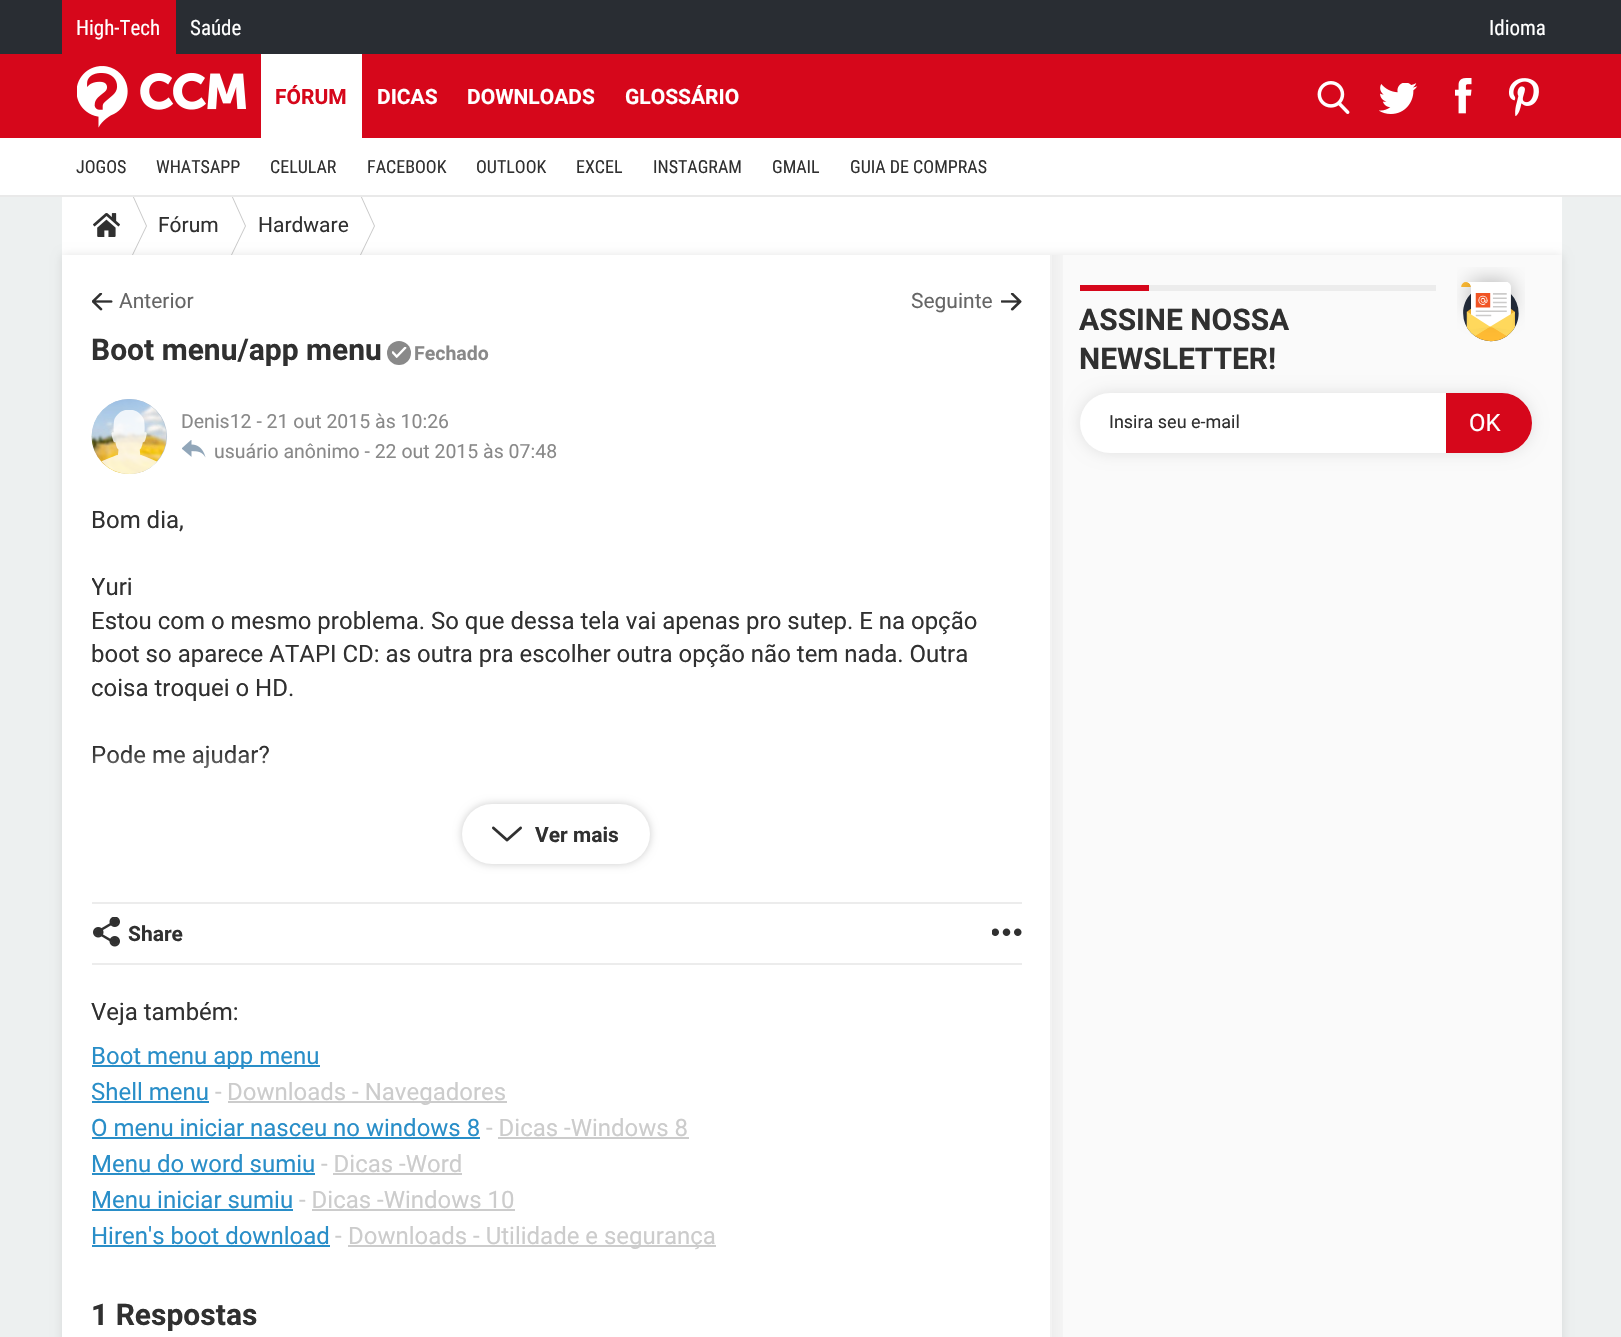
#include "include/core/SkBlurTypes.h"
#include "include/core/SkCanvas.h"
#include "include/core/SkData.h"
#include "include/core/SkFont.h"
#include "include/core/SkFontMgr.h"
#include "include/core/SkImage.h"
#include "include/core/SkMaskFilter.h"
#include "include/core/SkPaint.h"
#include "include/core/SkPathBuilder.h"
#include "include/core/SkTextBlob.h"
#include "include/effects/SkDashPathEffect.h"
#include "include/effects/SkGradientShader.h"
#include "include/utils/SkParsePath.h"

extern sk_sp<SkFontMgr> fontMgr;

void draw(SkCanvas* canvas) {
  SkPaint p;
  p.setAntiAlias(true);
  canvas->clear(SkColorSetRGB(237, 240, 240));
  p.setColor(SK_ColorWHITE);
  canvas->drawRect(SkRect::MakeLTRB(62, 197, 1562, 255), p);
  p.setColor(SkColorSetRGB(201, 201, 201));
  canvas->drawPath(SkPathBuilder(SkPathFillType::kEvenOdd).moveTo(132, 195).lineTo(133, 195).lineTo(147, 226).lineTo(133, 255).lineTo(132, 255).lineTo(146, 226).close().detach(), p);
  canvas->drawPath(SkPathBuilder(SkPathFillType::kEvenOdd).moveTo(231, 195).lineTo(232, 195).lineTo(246, 226).lineTo(232, 255).lineTo(231, 255).lineTo(245, 226).close().detach(), p);
  canvas->drawPath(SkPathBuilder(SkPathFillType::kEvenOdd).moveTo(360, 195).lineTo(361, 195).lineTo(375, 226).lineTo(361, 255).lineTo(360, 255).lineTo(374, 226).close().detach(), p);
  p.setColor(SkColorSetRGB(233, 233, 233));
  canvas->drawPath(SkPathBuilder().moveTo(0, 195).lineTo(0, 197).lineTo(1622, 197).lineTo(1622, 2).lineTo(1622, 195).close().detach(), p);
  p.setColor(SK_ColorWHITE);
  canvas->drawRect(SkRect::MakeLTRB(0, 138, 1621, 195), p);
  p.setColor(SkColorSetRGB(41, 45, 51));
  canvas->drawRect(SkRect::MakeLTRB(0, 0, 1621, 54), p);
  p.setColor(SkColorSetRGB(214, 7, 27));
  canvas->drawRect(SkRect::MakeLTRB(62, 0, 176, 54), p);
  canvas->drawRect(SkRect::MakeLTRB(0, 54, 1621, 138), p);
  canvas->drawImageRect(SkImages::DeferredFromEncodedData(SkData::MakeFromFileName("images/1.png")), SkRect::MakeLTRB(77, 66, 246, 128), SkSamplingOptions());
  canvas->drawImageRect(SkImages::DeferredFromEncodedData(SkData::MakeFromFileName("images/2.png")), SkRect::MakeLTRB(1317, 81, 1350, 114), SkSamplingOptions());
  canvas->drawImageRect(SkImages::DeferredFromEncodedData(SkData::MakeFromFileName("images/3.png")), SkRect::MakeLTRB(1379, 83, 1418, 114), SkSamplingOptions());
  canvas->drawImageRect(SkImages::DeferredFromEncodedData(SkData::MakeFromFileName("images/4.png")), SkRect::MakeLTRB(1455, 78, 1472, 114), SkSamplingOptions());
  canvas->drawImageRect(SkImages::DeferredFromEncodedData(SkData::MakeFromFileName("images/5.png")), SkRect::MakeLTRB(1509, 78, 1539, 116), SkSamplingOptions());
  p.setColor(SK_ColorWHITE);
  canvas->drawRect(SkRect::MakeLTRB(261, 54, 362, 138), p);
  canvas->drawImageRect(SkImages::DeferredFromEncodedData(SkData::MakeFromFileName("images/6.png")), SkRect::MakeLTRB(93, 213, 120, 237), SkSamplingOptions());
  p.setColor(SkColorSetARGB(26, 0, 0, 0));
  p.setMaskFilter(SkMaskFilter::MakeBlur(kNormal_SkBlurStyle, 4.5f));
  canvas->drawRect(SkRect::MakeLTRB(62, 255, 1562, 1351), p);
  p.setMaskFilter(nullptr);
  p.setColor(SK_ColorWHITE);
  canvas->drawRect(SkRect::MakeLTRB(62, 255, 1052, 1337), p);
  canvas->drawImageRect(SkImages::DeferredFromEncodedData(SkData::MakeFromFileName("images/7.png")), SkRect::MakeLTRB(92, 293, 113, 311), SkSamplingOptions());
  canvas->drawImageRect(SkImages::DeferredFromEncodedData(SkData::MakeFromFileName("images/8.png")), SkRect::MakeLTRB(1001, 293, 1022, 311), SkSamplingOptions());
  p.setColor(SkColorSetRGB(137, 137, 137));
  canvas->drawCircle(399, 353, 12, p);
  canvas->drawImageRect(SkImages::DeferredFromEncodedData(SkData::MakeFromFileName("images/9.png")), SkRect::MakeLTRB(392, 347, 407, 358), SkSamplingOptions());
  p.setColor(SkColorSetRGB(176, 190, 203));
  canvas->drawCircle(129.5f, 436.5f, 37.5f, p);
  canvas->drawImageRect(SkImages::DeferredFromEncodedData(SkData::MakeFromFileName("images/10.png")), SkRect::MakeLTRB(91, 399, 167, 474), SkSamplingOptions());
  canvas->drawImageRect(SkImages::DeferredFromEncodedData(SkData::MakeFromFileName("images/11.png")), SkRect::MakeLTRB(101, 410, 157, 474), SkSamplingOptions());
  canvas->drawImageRect(SkImages::DeferredFromEncodedData(SkData::MakeFromFileName("images/12.png")), SkRect::MakeLTRB(182, 440, 206, 458), SkSamplingOptions());
  p.setColor(SkColorSetARGB(51, 0, 0, 0));
  p.setMaskFilter(SkMaskFilter::MakeBlur(kNormal_SkBlurStyle, 4));
  canvas->drawRoundRect(SkRect::MakeLTRB(462, 804, 650, 864), 30, 30, p);
  p.setMaskFilter(nullptr);
  p.setColor(SK_ColorWHITE);
  canvas->drawRoundRect(SkRect::MakeLTRB(462, 804, 650, 864), 30, 30, p);
  canvas->drawImageRect(SkImages::DeferredFromEncodedData(SkData::MakeFromFileName("images/13.png")), SkRect::MakeLTRB(492, 826, 522, 842), SkSamplingOptions());
  p.setColor(SkColorSetRGB(236, 236, 236));
  canvas->drawRect(SkRect::MakeLTRB(92, 902, 1022, 904), p);
  canvas->drawRect(SkRect::MakeLTRB(92, 963, 1022, 965), p);
  canvas->drawImageRect(SkImages::DeferredFromEncodedData(SkData::MakeFromFileName("images/14.png")), SkRect::MakeLTRB(93, 917, 120, 947), SkSamplingOptions());
  canvas->drawImageRect(SkImages::DeferredFromEncodedData(SkData::MakeFromFileName("images/15.png")), SkRect::MakeLTRB(992, 928, 1022, 936), SkSamplingOptions());
  p.setColor(SkColorSetRGB(41, 142, 200));
  canvas->drawRect(SkRect::MakeLTRB(92, 1065, 320, 1067), p);
  canvas->drawRect(SkRect::MakeLTRB(92, 1101, 209, 1103), p);
  p.setColor(SkColorSetRGB(204, 204, 204));
  canvas->drawRect(SkRect::MakeLTRB(228, 1101, 507, 1103), p);
  p.setColor(SkColorSetRGB(41, 142, 200));
  canvas->drawRect(SkRect::MakeLTRB(92, 1137, 480, 1139), p);
  p.setColor(SkColorSetRGB(204, 204, 204));
  canvas->drawRect(SkRect::MakeLTRB(498, 1137, 689, 1139), p);
  p.setColor(SkColorSetRGB(41, 142, 200));
  canvas->drawRect(SkRect::MakeLTRB(92, 1173, 315, 1175), p);
  p.setColor(SkColorSetRGB(204, 204, 204));
  canvas->drawRect(SkRect::MakeLTRB(333, 1173, 462, 1175), p);
  p.setColor(SkColorSetRGB(41, 142, 200));
  canvas->drawRect(SkRect::MakeLTRB(92, 1209, 293, 1211), p);
  p.setColor(SkColorSetRGB(204, 204, 204));
  canvas->drawRect(SkRect::MakeLTRB(312, 1209, 515, 1211), p);
  p.setColor(SkColorSetRGB(41, 142, 200));
  canvas->drawRect(SkRect::MakeLTRB(92, 1245, 330, 1247), p);
  p.setColor(SkColorSetRGB(204, 204, 204));
  canvas->drawRect(SkRect::MakeLTRB(348, 1245, 716, 1247), p);
  p.setColor(SkColorSetRGB(250, 250, 250));
  canvas->drawRect(SkRect::MakeLTRB(1052, 255, 1562, 1337), p);
  {
    const SkColor colors[] = {SkColorSetARGB(13, 0, 0, 0), SkColorSetARGB(0, 0, 0, 0)};
    const float stops[] = {0, 1};
    const SkPoint ends[] = {{1050, 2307}, {1073, 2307}};
    p.setShader(SkGradientShader::MakeLinear(ends, colors, stops, 2, SkTileMode::kClamp));
    p.setAlpha(255);
  }
  canvas->drawRect(SkRect::MakeLTRB(1050, 255, 1063, 1337), p);
  p.setShader(nullptr);
  p.setColor(SkColorSetRGB(236, 236, 236));
  canvas->drawRect(SkRect::MakeLTRB(1149, 285, 1436, 291), p);
  p.setColor(SkColorSetRGB(214, 7, 27));
  canvas->drawRect(SkRect::MakeLTRB(1080, 285, 1149, 291), p);
  canvas->drawImageRect(SkImages::DeferredFromEncodedData(SkData::MakeFromFileName("images/16.png")), SkRect::MakeLTRB(1457, 267, 1525, 342), SkSamplingOptions());
  p.setColor(SkColorSetARGB(26, 0, 0, 0));
  p.setMaskFilter(SkMaskFilter::MakeBlur(kNormal_SkBlurStyle, 7.5f));
  canvas->drawRoundRect(SkRect::MakeLTRB(1080, 393, 1532, 453), 30, 30, p);
  p.setMaskFilter(nullptr);
  p.setColor(SK_ColorWHITE);
  canvas->drawRoundRect(SkRect::MakeLTRB(1080, 393, 1532, 453), 30, 30, p);
  p.setColor(SkColorSetRGB(214, 7, 27));
  canvas->drawPath(SkPathBuilder().moveTo(1447.5f, 394.5f).lineTo(1502, 394.5f).cubicTo(1517.5f, 394.5f, 1530.5f, 407.5f, 1530.5f, 423).cubicTo(1530.5f, 438.5f, 1517.5f, 451.5f, 1502, 451.5f).lineTo(1447.5f, 451.5f).close().detach(), p);
  p.setStyle(SkPaint::kStroke_Style);
  p.setStrokeWidth(3);
  canvas->drawPath(SkPathBuilder().moveTo(1447.5f, 394.5f).lineTo(1502, 394.5f).cubicTo(1517.5f, 394.5f, 1530.5f, 407.5f, 1530.5f, 423).cubicTo(1530.5f, 438.5f, 1517.5f, 451.5f, 1502, 451.5f).lineTo(1447.5f, 451.5f).close().detach(), p);
  SkFont font1(fontMgr->matchFamilyStyle("Roboto Condensed", SkFontStyle::Normal()), 21);
  font1.setSubpixel(true);
  p.setStyle(SkPaint::kFill_Style);
  p.setColor(SK_ColorWHITE);
  canvas->drawString("High-Tech", 76, 35, font1, p);
  canvas->drawString("Saúde", 190, 35, font1, p);
  canvas->drawString("Idioma", 1489, 35, font1, p);
  SkFont font2(fontMgr->matchFamilyStyle("Roboto", SkFontStyle::Bold()), 21);
  font2.setSubpixel(true);
  p.setColor(SkColorSetRGB(214, 7, 27));
  canvas->drawString("FÓRUM", 275, 104, font2, p);
  p.setColor(SK_ColorWHITE);
  canvas->drawString("DICAS", 377, 104, font2, p);
  canvas->drawString("DOWNLOADS", 467, 104, font2, p);
  canvas->drawString("GLOSSÁRIO", 625, 104, font2, p);
  SkFont font3(fontMgr->matchFamilyStyle("Roboto Condensed", SkFontStyle::Normal()), 18);
  font3.setSubpixel(true);
  p.setColor(SkColorSetRGB(48, 48, 48));
  canvas->drawString("JOGOS", 76, 173, font3, p);
  canvas->drawString("WHATSAPP", 156, 173, font3, p);
  canvas->drawString("CELULAR", 270, 173, font3, p);
  canvas->drawString("FACEBOOK", 367, 173, font3, p);
  canvas->drawString("OUTLOOK", 476, 173, font3, p);
  canvas->drawString("EXCEL", 576, 173, font3, p);
  canvas->drawString("INSTAGRAM", 653, 173, font3, p);
  canvas->drawString("GMAIL", 772, 173, font3, p);
  canvas->drawString("GUIA DE COMPRAS", 850, 173, font3, p);
  SkFont font4(fontMgr->matchFamilyStyle("Roboto", SkFontStyle::Normal()), 21);
  font4.setSubpixel(true);
  canvas->drawString("Fórum", 158, 232, font4, p);
  canvas->drawString("Hardware", 258, 232, font4, p);
  p.setColor(SkColorSetRGB(102, 102, 102));
  canvas->drawString("Anterior", 119, 308, font4, p);
  canvas->drawString("Seguinte", 911, 308, font4, p);
  SkFont font5(fontMgr->matchFamilyStyle("Roboto", SkFontStyle::Bold()), 30);
  font5.setSubpixel(true);
  p.setColor(SkColorSetRGB(48, 48, 48));
  canvas->drawString("Boot menu/app menu", 91, 360, font5, p);
  SkFont font6(fontMgr->matchFamilyStyle("Roboto", SkFontStyle::Bold()), 19.5f);
  font6.setSubpixel(true);
  p.setColor(SkColorSetRGB(137, 137, 137));
  canvas->drawString("Fechado", 414, 360, font6, p);
  SkFont font7(fontMgr->matchFamilyStyle("Roboto", SkFontStyle::Normal()), 19.5f);
  font7.setSubpixel(true);
  canvas->drawString("Denis12 - 21 out 2015 às 10:26", 181, 428, font7, p);
  canvas->drawString("usuário anônimo - 22 out 2015 às 07:48", 214, 458, font7, p);
  SkFont font8(fontMgr->matchFamilyStyle("Roboto", SkFontStyle::Normal()), 24);
  font8.setSubpixel(true);
  p.setColor(SkColorSetRGB(48, 48, 48));
  canvas->drawString("Bom dia,", 91, 528, font8, p);
  canvas->save();
  canvas->clipRect(SkRect::MakeLTRB(92, 504, 1022, 872));
  canvas->drawString("Yuri", 91, 595, font8, p);
  canvas->restore();
  canvas->drawString("Estou com o mesmo problema. So que dessa tela vai apenas pro sutep. E na opção", 91, 629, font8, p);
  canvas->drawString("boot so aparece ATAPI CD: as outra pra escolher outra opção não tem nada. Outra", 91, 662, font8, p);
  canvas->save();
  canvas->clipRect(SkRect::MakeLTRB(92, 504, 1022, 872));
  canvas->drawString("coisa troquei o HD.", 91, 696, font8, p);
  canvas->restore();
  canvas->drawString("Pode me ajudar?", 91, 763, font8, p);
  {
    const SkColor colors[] = {SkColorSetARGB(0, 255, 255, 255), SK_ColorWHITE};
    const float stops[] = {0, 0.45f};
    const SkPoint ends[] = {{557, 751}, {557, 872}};
    p.setShader(SkGradientShader::MakeLinear(ends, colors, stops, 2, SkTileMode::kClamp));
    p.setAlpha(255);
  }
  canvas->drawRect(SkRect::MakeLTRB(92, 752, 268, 769), p);
  p.setShader(nullptr);
  p.setColor(SkColorSetRGB(48, 48, 48));
  canvas->drawString("Ver mais", 535, 842, font2, p);
  canvas->drawString("Share", 128, 941, font2, p);
  canvas->drawString("Veja também:", 91, 1020, font8, p);
  p.setColor(SkColorSetRGB(41, 142, 200));
  canvas->drawString("Boot menu app menu", 91, 1064, font8, p);
  canvas->drawString("Shell menu", 91, 1100, font8, p);
  p.setColor(SkColorSetRGB(204, 204, 204));
  canvas->drawString("-", 215, 1100, font8, p);
  canvas->drawString("Downloads - Navegadores", 227, 1100, font8, p);
  p.setColor(SkColorSetRGB(41, 142, 200));
  canvas->drawString("O menu iniciar nasceu no windows 8", 91, 1136, font8, p);
  p.setColor(SkColorSetRGB(204, 204, 204));
  canvas->drawString("- Dicas -Windows 8", 486, 1136, font8, p);
  p.setColor(SkColorSetRGB(41, 142, 200));
  canvas->drawString("Menu do word sumiu", 91, 1172, font8, p);
  p.setColor(SkColorSetRGB(204, 204, 204));
  canvas->drawString("- Dicas -Word", 321, 1172, font8, p);
  p.setColor(SkColorSetRGB(41, 142, 200));
  canvas->drawString("Menu iniciar sumiu", 91, 1208, font8, p);
  p.setColor(SkColorSetRGB(204, 204, 204));
  canvas->drawString("- Dicas -Windows 10", 299, 1208, font8, p);
  p.setColor(SkColorSetRGB(41, 142, 200));
  canvas->drawString("Hiren's boot download", 91, 1244, font8, p);
  p.setColor(SkColorSetRGB(204, 204, 204));
  canvas->drawString("-", 335, 1244, font8, p);
  canvas->drawString("Downloads - Utilidade e segurança", 348, 1244, font8, p);
  p.setColor(SkColorSetRGB(48, 48, 48));
  canvas->drawString("1 Respostas", 91, 1325, font5, p);
  canvas->drawString("ASSINE NOSSA", 1079, 330, font5, p);
  canvas->drawString("NEWSLETTER!", 1079, 369, font5, p);
  SkFont font9(fontMgr->matchFamilyStyle("Roboto", SkFontStyle::Normal()), 18);
  font9.setSubpixel(true);
  canvas->drawString("Insira seu e-mail", 1109, 428, font9, p);
  p.setColor(SK_ColorWHITE);
  canvas->drawString("OK", 1469, 431, font8, p);
}
